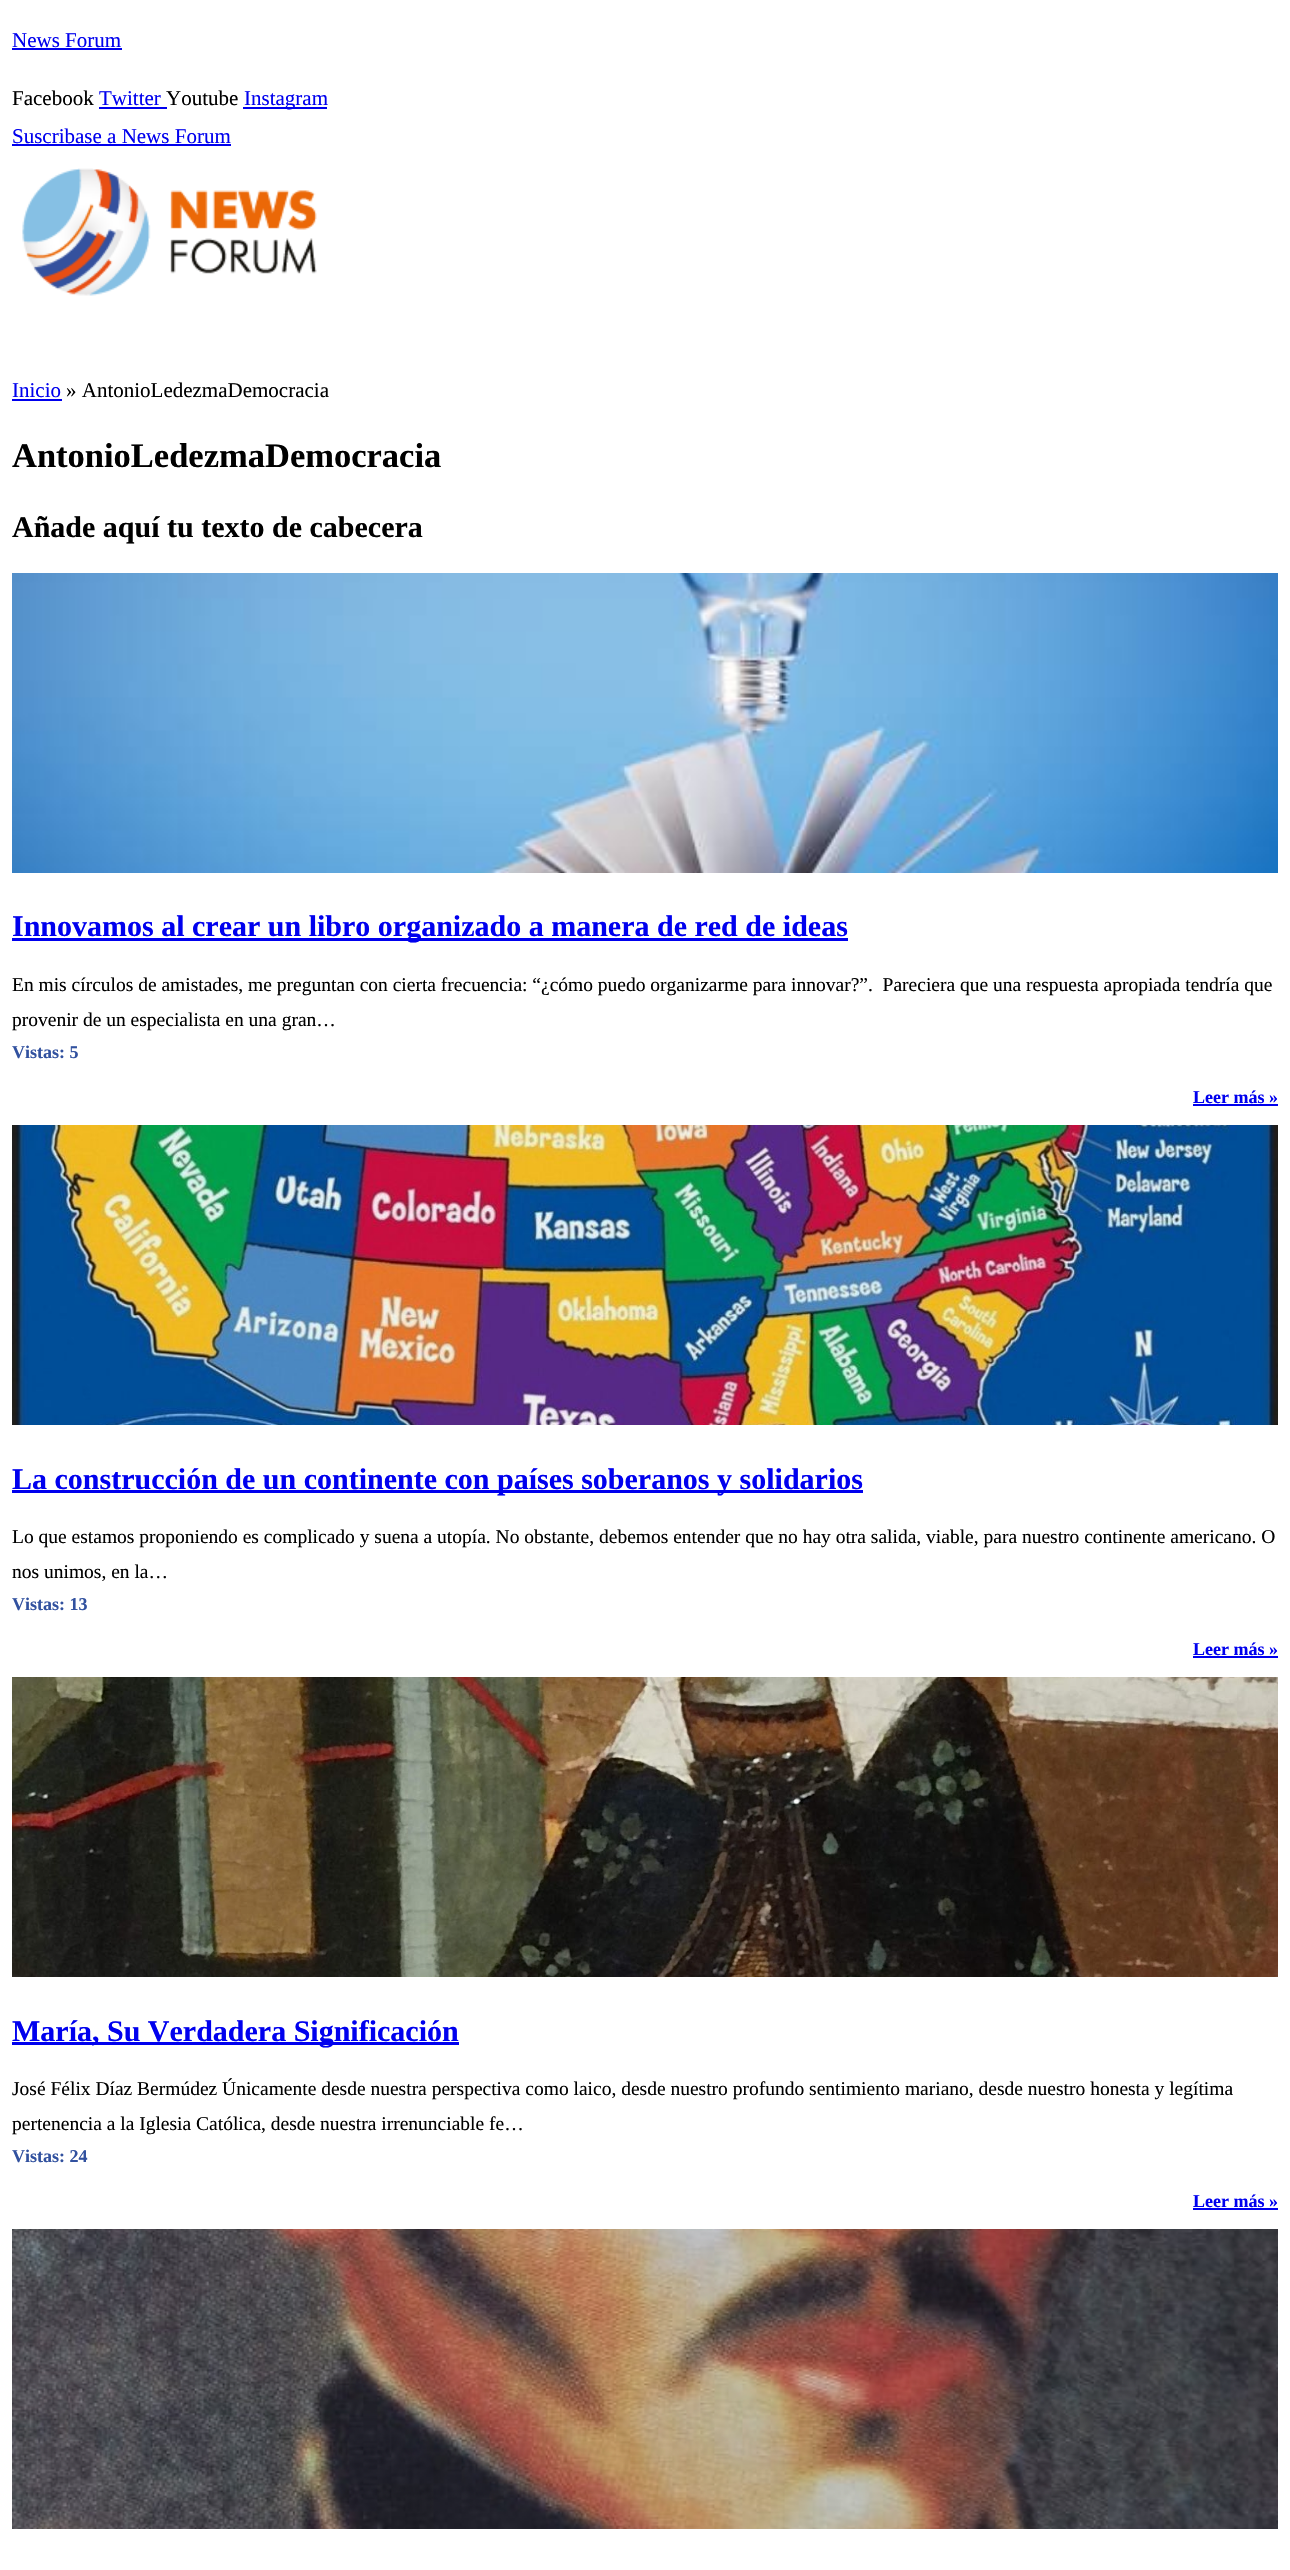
#include "include/core/SkBlurTypes.h"
#include "include/core/SkCanvas.h"
#include "include/core/SkData.h"
#include "include/core/SkFont.h"
#include "include/core/SkFontMgr.h"
#include "include/core/SkImage.h"
#include "include/core/SkMaskFilter.h"
#include "include/core/SkPaint.h"
#include "include/core/SkPathBuilder.h"
#include "include/core/SkTextBlob.h"
#include "include/effects/SkDashPathEffect.h"
#include "include/effects/SkGradientShader.h"
#include "include/utils/SkParsePath.h"

extern sk_sp<SkFontMgr> fontMgr;

void draw(SkCanvas* canvas) {
  SkPaint p;
  p.setAntiAlias(true);
  canvas->clear(SK_ColorWHITE);
  p.setColor(SkColorSetRGB(0, 0, 238));
  canvas->drawRect(SkRect::MakeLTRB(12, 48, 122, 50), p);
  canvas->drawRect(SkRect::MakeLTRB(99, 107, 167, 109), p);
  canvas->drawRect(SkRect::MakeLTRB(243, 107, 327, 109), p);
  canvas->drawRect(SkRect::MakeLTRB(12, 144, 231, 146), p);
  canvas->drawImageRect(SkImages::DeferredFromEncodedData(SkData::MakeFromFileName("images/1.png")), SkRect::MakeLTRB(22, 168, 317, 296), SkSamplingOptions());
  canvas->drawRect(SkRect::MakeLTRB(12, 399, 62, 401), p);
  canvas->drawImageRect(SkImages::DeferredFromEncodedData(SkData::MakeFromFileName("images/2.png")), SkRect::MakeLTRB(12, 573, 1278, 873), SkSamplingOptions());
  canvas->drawRect(SkRect::MakeLTRB(12, 938, 848, 941), p);
  canvas->drawRect(SkRect::MakeLTRB(1193, 1104, 1278, 1106), p);
  canvas->drawImageRect(SkImages::DeferredFromEncodedData(SkData::MakeFromFileName("images/3.png")), SkRect::MakeLTRB(12, 1125, 1278, 1425), SkSamplingOptions());
  canvas->drawRect(SkRect::MakeLTRB(12, 1490, 863, 1493), p);
  canvas->drawRect(SkRect::MakeLTRB(1193, 1656, 1278, 1658), p);
  canvas->drawImageRect(SkImages::DeferredFromEncodedData(SkData::MakeFromFileName("images/4.png")), SkRect::MakeLTRB(12, 1677, 1278, 1977), SkSamplingOptions());
  canvas->drawRect(SkRect::MakeLTRB(12, 2042, 459, 2045), p);
  canvas->drawRect(SkRect::MakeLTRB(1193, 2208, 1278, 2210), p);
  canvas->drawImageRect(SkImages::DeferredFromEncodedData(SkData::MakeFromFileName("images/5.png")), SkRect::MakeLTRB(12, 2229, 1278, 2529), SkSamplingOptions());
  SkFont font1(fontMgr->matchFamilyStyle("Liberation Serif", SkFontStyle::Normal()), 21);
  font1.setSubpixel(true);
  canvas->drawString("News Forum", 12, 47, font1, p);
  p.setColor(SK_ColorBLACK);
  canvas->drawString("Facebook", 12, 105, font1, p);
  p.setColor(SkColorSetRGB(0, 0, 238));
  canvas->drawString("Twitter", 99, 105, font1, p);
  p.setColor(SK_ColorBLACK);
  canvas->drawString("Youtube", 166, 105, font1, p);
  p.setColor(SkColorSetRGB(0, 0, 238));
  canvas->drawString("Instagram", 244, 105, font1, p);
  canvas->drawString("Suscribase a News Forum", 12, 143, font1, p);
  canvas->drawString("Inicio", 12, 397, font1, p);
  p.setColor(SK_ColorBLACK);
  canvas->drawString("» AntonioLedezmaDemocracia", 66, 397, font1, p);
  SkFont font2(fontMgr->matchFamilyStyle("Liberation Serif", SkFontStyle::Bold()), 34.5f);
  font2.setSubpixel(true);
  canvas->drawString("AntonioLedezmaDemocracia", 12, 467, font2, p);
  SkFont font3(fontMgr->matchFamilyStyle("Liberation Serif", SkFontStyle::Bold()), 30);
  font3.setSubpixel(true);
  canvas->drawString("Añade aquí tu texto de cabecera", 12, 537, font3, p);
  p.setColor(SkColorSetRGB(0, 0, 238));
  canvas->drawString("Innovamos al crear un libro organizado a manera de red de ideas", 12, 936, font3, p);
  SkFont font4(fontMgr->matchFamilyStyle("Liberation Serif", SkFontStyle::Normal()), 19.5f);
  font4.setSubpixel(true);
  p.setColor(SK_ColorBLACK);
  canvas->drawString("En mis círculos de amistades, me preguntan con cierta frecuencia: “¿cómo puedo organizarme para innovar?”.  Pareciera que una respuesta apropiada tendría que", 12, 991, font4, p);
  canvas->drawString("provenir de un especialista en una gran…", 12, 1026, font4, p);
  SkFont font5(fontMgr->matchFamilyStyle("Liberation Serif", SkFontStyle::Bold()), 18);
  font5.setSubpixel(true);
  p.setColor(SkColorSetRGB(49, 81, 159));
  canvas->drawString("Vistas: 5", 12, 1058, font5, p);
  p.setColor(SkColorSetRGB(0, 0, 238));
  canvas->drawString("Leer más »", 1193, 1103, font5, p);
  canvas->drawString("La construcción de un continente con países soberanos y solidarios", 12, 1489, font3, p);
  p.setColor(SK_ColorBLACK);
  canvas->drawString("Lo que estamos proponiendo es complicado y suena a utopía. No obstante, debemos entender que no hay otra salida, viable, para nuestro continente americano. O", 12, 1543, font4, p);
  canvas->drawString("nos unimos, en la…", 12, 1578, font4, p);
  p.setColor(SkColorSetRGB(49, 81, 159));
  canvas->drawString("Vistas: 13", 12, 1610, font5, p);
  p.setColor(SkColorSetRGB(0, 0, 238));
  canvas->drawString("Leer más »", 1193, 1655, font5, p);
  canvas->drawString("María, Su Verdadera Significación", 12, 2041, font3, p);
  p.setColor(SK_ColorBLACK);
  canvas->drawString("José Félix Díaz Bermúdez Únicamente desde nuestra perspectiva como laico, desde nuestro profundo sentimiento mariano, desde nuestro honesta y legítima", 12, 2095, font4, p);
  canvas->drawString("pertenencia a la Iglesia Católica, desde nuestra irrenunciable fe…", 12, 2130, font4, p);
  p.setColor(SkColorSetRGB(49, 81, 159));
  canvas->drawString("Vistas: 24", 12, 2162, font5, p);
  p.setColor(SkColorSetRGB(0, 0, 238));
  canvas->drawString("Leer más »", 1193, 2207, font5, p);
}
